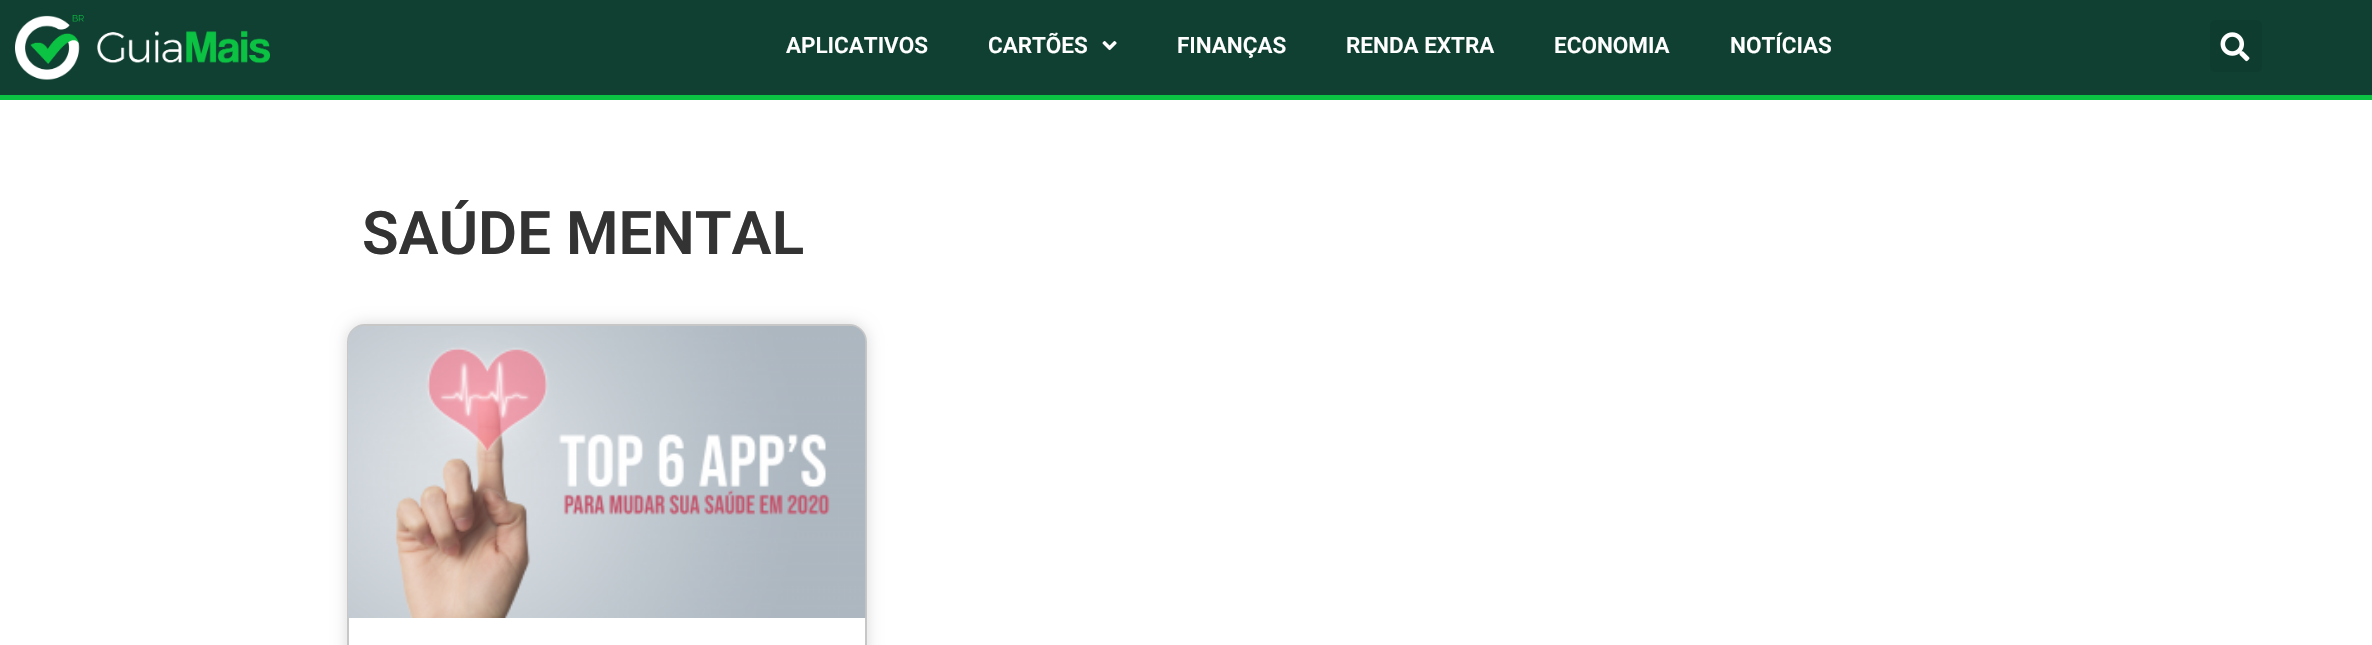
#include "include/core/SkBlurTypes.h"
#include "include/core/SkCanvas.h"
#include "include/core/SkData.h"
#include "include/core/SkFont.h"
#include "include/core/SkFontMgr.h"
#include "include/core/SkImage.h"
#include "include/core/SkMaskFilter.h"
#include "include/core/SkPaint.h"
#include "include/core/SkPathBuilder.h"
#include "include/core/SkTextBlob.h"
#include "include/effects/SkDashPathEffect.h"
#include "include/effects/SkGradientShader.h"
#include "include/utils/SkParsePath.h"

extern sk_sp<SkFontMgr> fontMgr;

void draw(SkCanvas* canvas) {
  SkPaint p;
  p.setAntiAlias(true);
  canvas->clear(SK_ColorWHITE);
  p.setColor(SkColorSetRGB(15, 64, 49));
  canvas->drawRect(SkRect::MakeLTRB(0, 0, 2372, 95), p);
  p.setColor(SkColorSetRGB(12, 194, 67));
  canvas->drawRect(SkRect::MakeLTRB(0, 95, 2372, 100), p);
  canvas->drawImageRect(SkImages::DeferredFromEncodedData(SkData::MakeFromFileName("images/1.png")), SkRect::MakeLTRB(15, 15, 270, 80), SkSamplingOptions());
  canvas->drawImageRect(SkImages::DeferredFromEncodedData(SkData::MakeFromFileName("images/2.png")), SkRect::MakeLTRB(1102, 41, 1117, 51), SkSamplingOptions());
  p.setColor(SkColorSetRGB(14, 61, 47));
  canvas->drawRoundRect(SkRect::MakeLTRB(2210, 20, 2262, 72), 5, 5, p);
  canvas->drawImageRect(SkImages::DeferredFromEncodedData(SkData::MakeFromFileName("images/3.png")), SkRect::MakeLTRB(2220, 32, 2250, 62), SkSamplingOptions());
  p.setColor(SkColorSetARGB(38, 0, 0, 0));
  p.setMaskFilter(SkMaskFilter::MakeBlur(kNormal_SkBlurStyle, 7.5f));
  canvas->drawRoundRect(SkRect::MakeLTRB(347, 324, 867, 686), 18, 18, p);
  p.setMaskFilter(nullptr);
  p.setColor(SK_ColorWHITE);
  canvas->drawRoundRect(SkRect::MakeLTRB(348, 325, 866, 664), 17, 17, p);
  p.setStyle(SkPaint::kStroke_Style);
  p.setStrokeWidth(2);
  p.setColor(SkColorSetRGB(199, 199, 199));
  canvas->drawRoundRect(SkRect::MakeLTRB(348, 325, 866, 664), 17, 17, p);
  canvas->drawImageRect(SkImages::DeferredFromEncodedData(SkData::MakeFromFileName("images/4.png")), SkRect::MakeLTRB(348, 326, 866, 618), SkSamplingOptions());
  SkFont font1(fontMgr->matchFamilyStyle("Roboto", SkFontStyle(600, SkFontStyle::kNormal_Width, SkFontStyle::kUpright_Slant)), 22.5f);
  font1.setSubpixel(true);
  p.setStyle(SkPaint::kFill_Style);
  p.setColor(SK_ColorWHITE);
  canvas->drawString("APLICATIVOS", 786, 53, font1, p);
  canvas->drawString("CARTÕES", 988, 53, font1, p);
  canvas->drawString("FINANÇAS", 1177, 53, font1, p);
  canvas->drawString("RENDA EXTRA", 1346, 53, font1, p);
  canvas->drawString("ECONOMIA", 1554, 53, font1, p);
  canvas->drawString("NOTÍCIAS", 1730, 53, font1, p);
  SkFont font2(fontMgr->matchFamilyStyle("Roboto", SkFontStyle(600, SkFontStyle::kNormal_Width, SkFontStyle::kUpright_Slant)), 60);
  font2.setSubpixel(true);
  p.setColor(SkColorSetRGB(51, 51, 51));
  canvas->drawString("SAÚDE MENTAL", 362, 254, font2, p);
}
